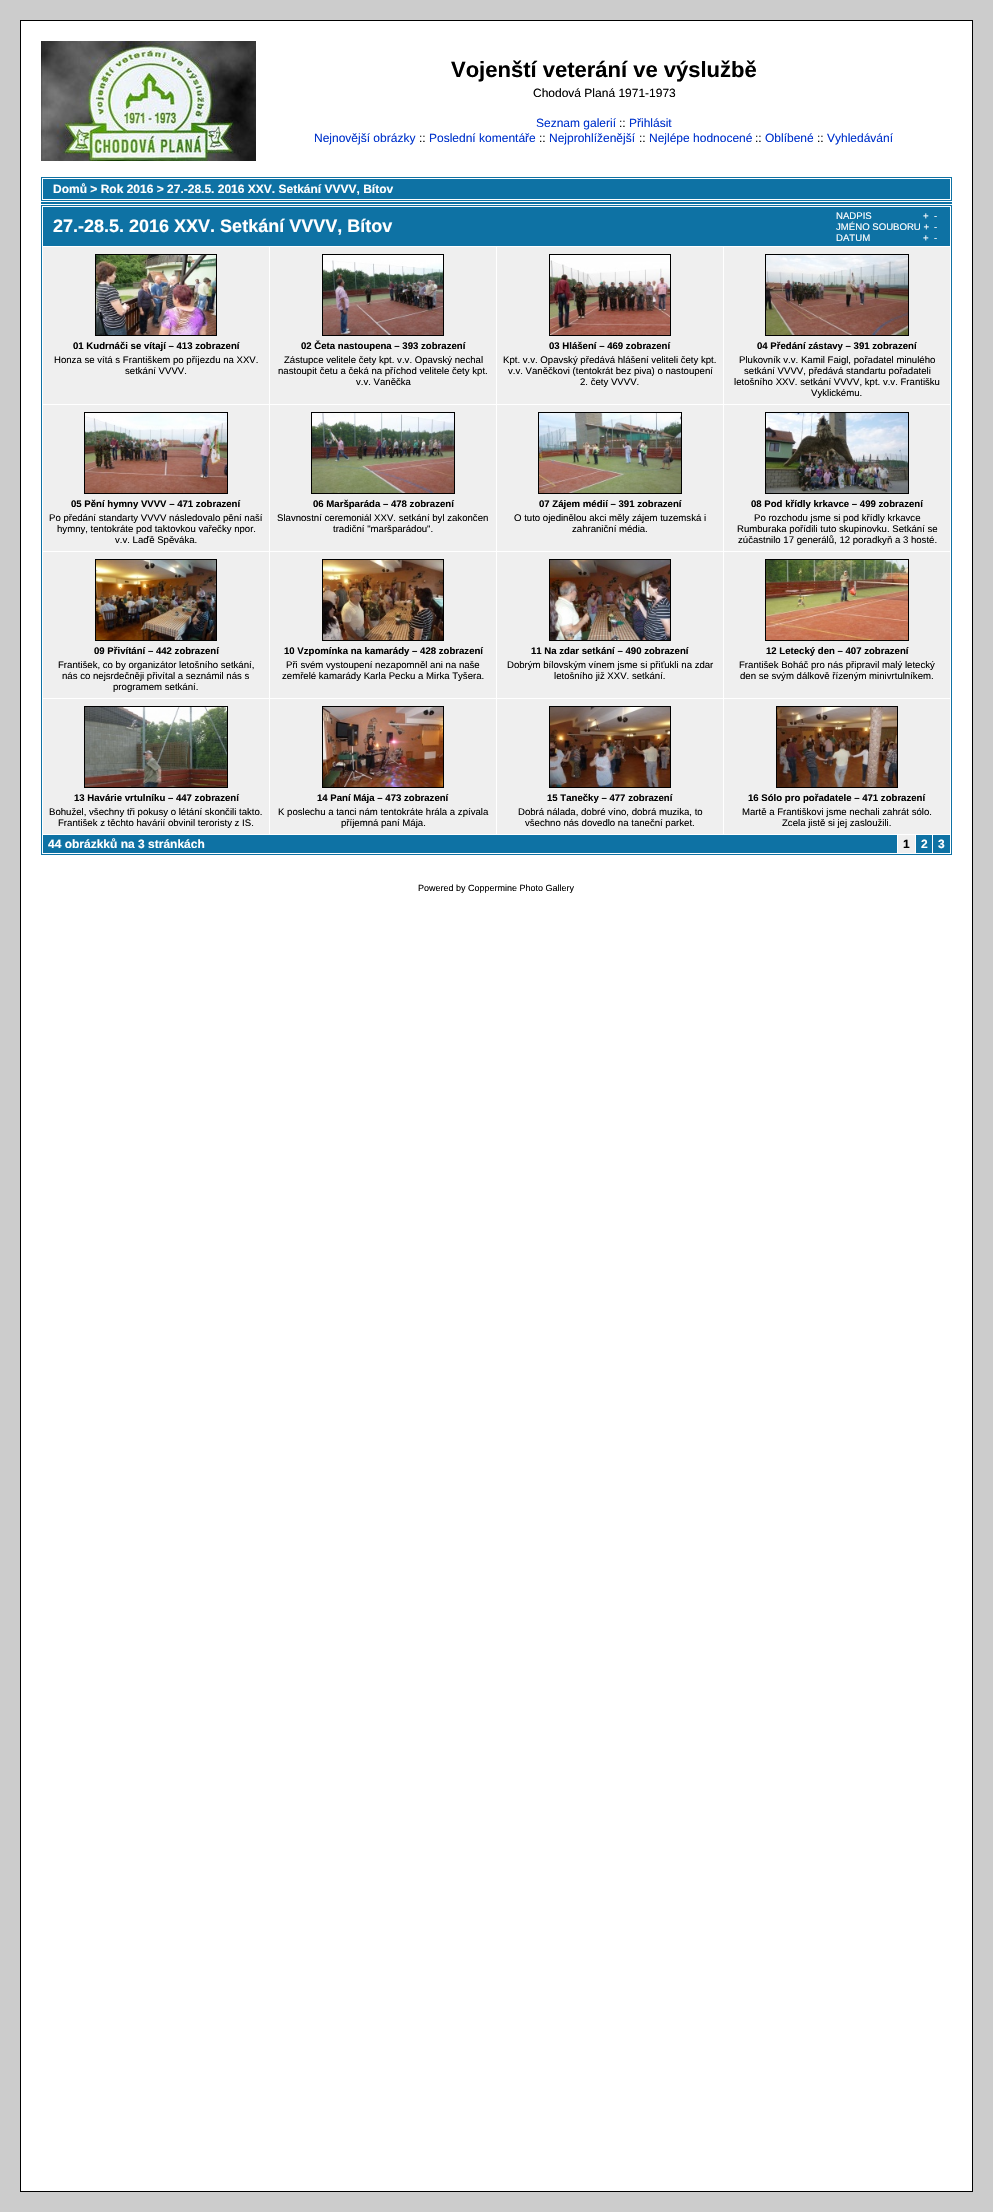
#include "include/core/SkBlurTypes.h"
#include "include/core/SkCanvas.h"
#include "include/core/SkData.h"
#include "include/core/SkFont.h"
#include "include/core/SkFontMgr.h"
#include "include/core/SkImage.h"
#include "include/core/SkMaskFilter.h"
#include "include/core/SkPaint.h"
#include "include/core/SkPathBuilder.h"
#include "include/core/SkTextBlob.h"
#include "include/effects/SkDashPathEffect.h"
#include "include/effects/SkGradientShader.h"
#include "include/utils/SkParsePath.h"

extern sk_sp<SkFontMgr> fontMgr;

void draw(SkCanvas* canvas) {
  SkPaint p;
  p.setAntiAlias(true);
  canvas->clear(SkColorSetRGB(204, 204, 204));
  p.setColor(SK_ColorWHITE);
  canvas->drawRect(SkRect::MakeLTRB(20.5f, 20.5f, 972.5f, 2191.5f), p);
  p.setStyle(SkPaint::kStroke_Style);
  p.setStrokeWidth(1);
  p.setColor(SK_ColorBLACK);
  canvas->drawRect(SkRect::MakeLTRB(20.5f, 20.5f, 972.5f, 2191.5f), p);
  canvas->drawImageRect(SkImages::DeferredFromEncodedData(SkData::MakeFromFileName("images/1.png")), SkRect::MakeLTRB(41, 41, 256, 161), SkSamplingOptions());
  p.setColor(SkColorSetRGB(14, 114, 164));
  canvas->drawRect(SkRect::MakeLTRB(41.5f, 177.5f, 951.5f, 200.5f), p);
  p.setStyle(SkPaint::kFill_Style);
  canvas->drawRect(SkRect::MakeLTRB(43, 179, 950, 199), p);
  canvas->drawRect(SkRect::MakeLTRB(41, 202, 952, 204), p);
  p.setStyle(SkPaint::kStroke_Style);
  canvas->drawRect(SkRect::MakeLTRB(41.5f, 205.5f, 951.5f, 854.5f), p);
  p.setStyle(SkPaint::kFill_Style);
  canvas->drawRect(SkRect::MakeLTRB(43, 207, 950, 246), p);
  p.setColor(SkColorSetRGB(239, 239, 239));
  canvas->drawRect(SkRect::MakeLTRB(43, 247, 269, 404), p);
  p.setStyle(SkPaint::kStroke_Style);
  p.setColor(SK_ColorBLACK);
  canvas->drawRect(SkRect::MakeLTRB(95.5f, 254.5f, 216.5f, 335.5f), p);
  canvas->drawImageRect(SkImages::DeferredFromEncodedData(SkData::MakeFromFileName("images/2.png")), SkRect::MakeLTRB(96, 255, 216, 335), SkSamplingOptions());
  p.setStyle(SkPaint::kFill_Style);
  p.setColor(SkColorSetRGB(239, 239, 239));
  canvas->drawRect(SkRect::MakeLTRB(270, 247, 496, 404), p);
  p.setStyle(SkPaint::kStroke_Style);
  p.setColor(SK_ColorBLACK);
  canvas->drawRect(SkRect::MakeLTRB(322.5f, 254.5f, 443.5f, 335.5f), p);
  canvas->drawImageRect(SkImages::DeferredFromEncodedData(SkData::MakeFromFileName("images/3.png")), SkRect::MakeLTRB(323, 255, 443, 335), SkSamplingOptions());
  p.setStyle(SkPaint::kFill_Style);
  p.setColor(SkColorSetRGB(239, 239, 239));
  canvas->drawRect(SkRect::MakeLTRB(497, 247, 723, 404), p);
  p.setStyle(SkPaint::kStroke_Style);
  p.setColor(SK_ColorBLACK);
  canvas->drawRect(SkRect::MakeLTRB(549.5f, 254.5f, 670.5f, 335.5f), p);
  canvas->drawImageRect(SkImages::DeferredFromEncodedData(SkData::MakeFromFileName("images/4.png")), SkRect::MakeLTRB(550, 255, 670, 335), SkSamplingOptions());
  p.setStyle(SkPaint::kFill_Style);
  p.setColor(SkColorSetRGB(239, 239, 239));
  canvas->drawRect(SkRect::MakeLTRB(724, 247, 950, 404), p);
  p.setStyle(SkPaint::kStroke_Style);
  p.setColor(SK_ColorBLACK);
  canvas->drawRect(SkRect::MakeLTRB(765.5f, 254.5f, 908.5f, 335.5f), p);
  canvas->drawImageRect(SkImages::DeferredFromEncodedData(SkData::MakeFromFileName("images/5.png")), SkRect::MakeLTRB(766, 255, 908, 335), SkSamplingOptions());
  p.setStyle(SkPaint::kFill_Style);
  p.setColor(SkColorSetRGB(239, 239, 239));
  canvas->drawRect(SkRect::MakeLTRB(43, 405, 269, 551), p);
  p.setStyle(SkPaint::kStroke_Style);
  p.setColor(SK_ColorBLACK);
  canvas->drawRect(SkRect::MakeLTRB(84.5f, 412.5f, 227.5f, 493.5f), p);
  canvas->drawImageRect(SkImages::DeferredFromEncodedData(SkData::MakeFromFileName("images/6.png")), SkRect::MakeLTRB(85, 413, 227, 493), SkSamplingOptions());
  p.setStyle(SkPaint::kFill_Style);
  p.setColor(SkColorSetRGB(239, 239, 239));
  canvas->drawRect(SkRect::MakeLTRB(270, 405, 496, 551), p);
  p.setStyle(SkPaint::kStroke_Style);
  p.setColor(SK_ColorBLACK);
  canvas->drawRect(SkRect::MakeLTRB(311.5f, 412.5f, 454.5f, 493.5f), p);
  canvas->drawImageRect(SkImages::DeferredFromEncodedData(SkData::MakeFromFileName("images/7.png")), SkRect::MakeLTRB(312, 413, 454, 493), SkSamplingOptions());
  p.setStyle(SkPaint::kFill_Style);
  p.setColor(SkColorSetRGB(239, 239, 239));
  canvas->drawRect(SkRect::MakeLTRB(497, 405, 723, 551), p);
  p.setStyle(SkPaint::kStroke_Style);
  p.setColor(SK_ColorBLACK);
  canvas->drawRect(SkRect::MakeLTRB(538.5f, 412.5f, 681.5f, 493.5f), p);
  canvas->drawImageRect(SkImages::DeferredFromEncodedData(SkData::MakeFromFileName("images/8.png")), SkRect::MakeLTRB(539, 413, 681, 493), SkSamplingOptions());
  p.setStyle(SkPaint::kFill_Style);
  p.setColor(SkColorSetRGB(239, 239, 239));
  canvas->drawRect(SkRect::MakeLTRB(724, 405, 950, 551), p);
  p.setStyle(SkPaint::kStroke_Style);
  p.setColor(SK_ColorBLACK);
  canvas->drawRect(SkRect::MakeLTRB(765.5f, 412.5f, 908.5f, 493.5f), p);
  canvas->drawImageRect(SkImages::DeferredFromEncodedData(SkData::MakeFromFileName("images/9.png")), SkRect::MakeLTRB(766, 413, 908, 493), SkSamplingOptions());
  p.setStyle(SkPaint::kFill_Style);
  p.setColor(SkColorSetRGB(239, 239, 239));
  canvas->drawRect(SkRect::MakeLTRB(43, 552, 269, 698), p);
  p.setStyle(SkPaint::kStroke_Style);
  p.setColor(SK_ColorBLACK);
  canvas->drawRect(SkRect::MakeLTRB(95.5f, 559.5f, 216.5f, 640.5f), p);
  canvas->drawImageRect(SkImages::DeferredFromEncodedData(SkData::MakeFromFileName("images/10.png")), SkRect::MakeLTRB(96, 560, 216, 640), SkSamplingOptions());
  p.setStyle(SkPaint::kFill_Style);
  p.setColor(SkColorSetRGB(239, 239, 239));
  canvas->drawRect(SkRect::MakeLTRB(270, 552, 496, 698), p);
  p.setStyle(SkPaint::kStroke_Style);
  p.setColor(SK_ColorBLACK);
  canvas->drawRect(SkRect::MakeLTRB(322.5f, 559.5f, 443.5f, 640.5f), p);
  canvas->drawImageRect(SkImages::DeferredFromEncodedData(SkData::MakeFromFileName("images/11.png")), SkRect::MakeLTRB(323, 560, 443, 640), SkSamplingOptions());
  p.setStyle(SkPaint::kFill_Style);
  p.setColor(SkColorSetRGB(239, 239, 239));
  canvas->drawRect(SkRect::MakeLTRB(497, 552, 723, 698), p);
  p.setStyle(SkPaint::kStroke_Style);
  p.setColor(SK_ColorBLACK);
  canvas->drawRect(SkRect::MakeLTRB(549.5f, 559.5f, 670.5f, 640.5f), p);
  canvas->drawImageRect(SkImages::DeferredFromEncodedData(SkData::MakeFromFileName("images/12.png")), SkRect::MakeLTRB(550, 560, 670, 640), SkSamplingOptions());
  p.setStyle(SkPaint::kFill_Style);
  p.setColor(SkColorSetRGB(239, 239, 239));
  canvas->drawRect(SkRect::MakeLTRB(724, 552, 950, 698), p);
  p.setStyle(SkPaint::kStroke_Style);
  p.setColor(SK_ColorBLACK);
  canvas->drawRect(SkRect::MakeLTRB(765.5f, 559.5f, 908.5f, 640.5f), p);
  canvas->drawImageRect(SkImages::DeferredFromEncodedData(SkData::MakeFromFileName("images/13.png")), SkRect::MakeLTRB(766, 560, 908, 640), SkSamplingOptions());
  p.setStyle(SkPaint::kFill_Style);
  p.setColor(SkColorSetRGB(239, 239, 239));
  canvas->drawRect(SkRect::MakeLTRB(43, 699, 269, 834), p);
  p.setStyle(SkPaint::kStroke_Style);
  p.setColor(SK_ColorBLACK);
  canvas->drawRect(SkRect::MakeLTRB(84.5f, 706.5f, 227.5f, 787.5f), p);
  canvas->drawImageRect(SkImages::DeferredFromEncodedData(SkData::MakeFromFileName("images/14.png")), SkRect::MakeLTRB(85, 707, 227, 787), SkSamplingOptions());
  p.setStyle(SkPaint::kFill_Style);
  p.setColor(SkColorSetRGB(239, 239, 239));
  canvas->drawRect(SkRect::MakeLTRB(270, 699, 496, 834), p);
  p.setStyle(SkPaint::kStroke_Style);
  p.setColor(SK_ColorBLACK);
  canvas->drawRect(SkRect::MakeLTRB(322.5f, 706.5f, 443.5f, 787.5f), p);
  canvas->drawImageRect(SkImages::DeferredFromEncodedData(SkData::MakeFromFileName("images/15.png")), SkRect::MakeLTRB(323, 707, 443, 787), SkSamplingOptions());
  p.setStyle(SkPaint::kFill_Style);
  p.setColor(SkColorSetRGB(239, 239, 239));
  canvas->drawRect(SkRect::MakeLTRB(497, 699, 723, 834), p);
  p.setStyle(SkPaint::kStroke_Style);
  p.setColor(SK_ColorBLACK);
  canvas->drawRect(SkRect::MakeLTRB(549.5f, 706.5f, 670.5f, 787.5f), p);
  canvas->drawImageRect(SkImages::DeferredFromEncodedData(SkData::MakeFromFileName("images/16.png")), SkRect::MakeLTRB(550, 707, 670, 787), SkSamplingOptions());
  p.setStyle(SkPaint::kFill_Style);
  p.setColor(SkColorSetRGB(239, 239, 239));
  canvas->drawRect(SkRect::MakeLTRB(724, 699, 950, 834), p);
  p.setStyle(SkPaint::kStroke_Style);
  p.setColor(SK_ColorBLACK);
  canvas->drawRect(SkRect::MakeLTRB(776.5f, 706.5f, 897.5f, 787.5f), p);
  canvas->drawImageRect(SkImages::DeferredFromEncodedData(SkData::MakeFromFileName("images/17.png")), SkRect::MakeLTRB(777, 707, 897, 787), SkSamplingOptions());
  p.setStyle(SkPaint::kFill_Style);
  p.setColor(SkColorSetRGB(14, 114, 164));
  canvas->drawRect(SkRect::MakeLTRB(43, 835, 897, 853), p);
  p.setColor(SkColorSetRGB(239, 239, 239));
  canvas->drawRect(SkRect::MakeLTRB(898, 835, 915, 853), p);
  p.setColor(SkColorSetRGB(14, 114, 164));
  canvas->drawRect(SkRect::MakeLTRB(916, 835, 932, 853), p);
  canvas->drawRect(SkRect::MakeLTRB(933, 835, 950, 853), p);
  SkFont font1(fontMgr->matchFamilyStyle("Liberation Sans", SkFontStyle::Bold()), 22);
  font1.setSubpixel(true);
  p.setColor(SK_ColorBLACK);
  canvas->drawString("Vojenští veterání ve výslužbě", 451, 77, font1, p);
  SkFont font2(fontMgr->matchFamilyStyle("Liberation Sans", SkFontStyle::Normal()), 12);
  font2.setSubpixel(true);
  canvas->drawString("Chodová Planá 1971-1973", 533, 97, font2, p);
  p.setColor(SkColorSetRGB(0, 51, 204));
  canvas->drawString("Seznam galerií", 536, 127, font2, p);
  p.setColor(SK_ColorBLACK);
  canvas->drawString("::", 619, 127, font2, p);
  p.setColor(SkColorSetRGB(0, 51, 204));
  canvas->drawString("Přihlásit", 629, 127, font2, p);
  canvas->drawString("Nejnovější obrázky", 314, 142, font2, p);
  p.setColor(SK_ColorBLACK);
  canvas->drawString("::", 419, 142, font2, p);
  p.setColor(SkColorSetRGB(0, 51, 204));
  canvas->drawString("Poslední komentáře", 429, 142, font2, p);
  p.setColor(SK_ColorBLACK);
  canvas->drawString("::", 539, 142, font2, p);
  p.setColor(SkColorSetRGB(0, 51, 204));
  canvas->drawString("Nejprohlíženější", 549, 142, font2, p);
  p.setColor(SK_ColorBLACK);
  canvas->drawString("::", 639, 142, font2, p);
  p.setColor(SkColorSetRGB(0, 51, 204));
  canvas->drawString("Nejlépe hodnocené", 649, 142, font2, p);
  p.setColor(SK_ColorBLACK);
  canvas->drawString("::", 755, 142, font2, p);
  p.setColor(SkColorSetRGB(0, 51, 204));
  canvas->drawString("Oblíbené", 765, 142, font2, p);
  p.setColor(SK_ColorBLACK);
  canvas->drawString("::", 817, 142, font2, p);
  p.setColor(SkColorSetRGB(0, 51, 204));
  canvas->drawString("Vyhledávání", 827, 142, font2, p);
  SkFont font3(fontMgr->matchFamilyStyle("Liberation Sans", SkFontStyle::Bold()), 12);
  font3.setSubpixel(true);
  p.setColor(SK_ColorWHITE);
  canvas->drawString("Domů > Rok 2016 > 27.-28.5. 2016 XXV. Setkání VVVV, Bítov", 53, 193, font3, p);
  SkFont font4(fontMgr->matchFamilyStyle("Liberation Sans", SkFontStyle::Bold()), 18);
  font4.setSubpixel(true);
  canvas->drawString("27.-28.5. 2016 XXV. Setkání VVVV, Bítov", 53, 232, font4, p);
  SkFont font5(fontMgr->matchFamilyStyle("Liberation Sans", SkFontStyle::Normal()), 9.6f);
  font5.setSubpixel(true);
  canvas->drawString("NADPIS", 836, 219, font5, p);
  canvas->drawString("+", 923, 219, font5, p);
  canvas->drawString("-", 934, 219, font5, p);
  canvas->drawString("JMÉNO SOUBORU +", 836, 230, font5, p);
  canvas->drawString("-", 934, 230, font5, p);
  canvas->drawString("DATUM", 836, 241, font5, p);
  canvas->drawString("+", 923, 241, font5, p);
  canvas->drawString("-", 934, 241, font5, p);
  SkFont font6(fontMgr->matchFamilyStyle("Liberation Sans", SkFontStyle::Bold()), 9.6f);
  font6.setSubpixel(true);
  p.setColor(SK_ColorBLACK);
  canvas->drawString("01 Kudrnáči se vítají – 413 zobrazení", 73, 349, font6, p);
  canvas->drawString("Honza se vítá s Františkem po příjezdu na XXV.", 54, 363, font5, p);
  canvas->drawString("setkání VVVV.", 125, 374, font5, p);
  canvas->drawString("02 Četa nastoupena – 393 zobrazení", 301, 349, font6, p);
  canvas->drawString("Zástupce velitele čety kpt. v.v. Opavský nechal", 284, 363, font5, p);
  canvas->drawString("nastoupit četu a čeká na příchod velitele čety kpt.", 278, 374, font5, p);
  canvas->drawString("v.v. Vaněčka", 356, 385, font5, p);
  canvas->drawString("03 Hlášení – 469 zobrazení", 549, 349, font6, p);
  canvas->drawString("Kpt. v.v. Opavský předává hlášení veliteli čety kpt.", 503, 363, font5, p);
  canvas->drawString("v.v. Vaněčkovi (tentokrát bez piva) o nastoupení", 508, 374, font5, p);
  canvas->drawString("2. čety VVVV.", 580, 385, font5, p);
  canvas->drawString("04 Předání zástavy – 391 zobrazení", 757, 349, font6, p);
  canvas->drawString("Plukovník v.v. Kamil Faigl, pořadatel minulého", 739, 363, font5, p);
  canvas->drawString("setkání VVVV, předává standartu pořadateli", 744, 374, font5, p);
  canvas->drawString("letošního XXV. setkání VVVV, kpt. v.v. Františku", 734, 385, font5, p);
  canvas->drawString("Vyklickému.", 811, 396, font5, p);
  canvas->drawString("05 Pění hymny VVVV – 471 zobrazení", 71, 507, font6, p);
  canvas->drawString("Po předání standarty VVVV následovalo pění naší", 49, 521, font5, p);
  canvas->drawString("hymny, tentokráte pod taktovkou vařečky npor.", 57, 532, font5, p);
  canvas->drawString("v.v. Laďě Spěváka.", 115, 543, font5, p);
  canvas->drawString("06 Maršparáda – 478 zobrazení", 313, 507, font6, p);
  canvas->drawString("Slavnostní ceremoniál XXV. setkání byl zakončen", 277, 521, font5, p);
  canvas->drawString("tradiční \"maršparádou\".", 333, 532, font5, p);
  canvas->drawString("07 Zájem médií – 391 zobrazení", 539, 507, font6, p);
  canvas->drawString("O tuto ojedinělou akci měly zájem tuzemská i", 514, 521, font5, p);
  canvas->drawString("zahraniční média.", 572, 532, font5, p);
  canvas->drawString("08 Pod křídly krkavce – 499 zobrazení", 751, 507, font6, p);
  canvas->drawString("Po rozchodu jsme si pod křídly krkavce", 754, 521, font5, p);
  canvas->drawString("Rumburaka pořídili tuto skupinovku. Setkání se", 737, 532, font5, p);
  canvas->drawString("zúčastnilo 17 generálů, 12 poradkyň a 3 hosté.", 738, 543, font5, p);
  canvas->drawString("09 Přivítání – 442 zobrazení", 94, 654, font6, p);
  canvas->drawString("František, co by organizátor letošního setkání,", 58, 668, font5, p);
  canvas->drawString("nás co nejsrdečněji přivítal a seznámil nás s", 62, 679, font5, p);
  canvas->drawString("programem setkání.", 113, 690, font5, p);
  canvas->drawString("10 Vzpomínka na kamarády – 428 zobrazení", 284, 654, font6, p);
  canvas->drawString("Při svém vystoupení nezapomněl ani na naše", 286, 668, font5, p);
  canvas->drawString("zemřelé kamarády Karla Pecku a Mirka Tyšera.", 282, 679, font5, p);
  canvas->drawString("11 Na zdar setkání – 490 zobrazení", 531, 654, font6, p);
  canvas->drawString("Dobrým bílovským vínem jsme si přiťukli na zdar", 507, 668, font5, p);
  canvas->drawString("letošního již XXV. setkání.", 554, 679, font5, p);
  canvas->drawString("12 Letecký den – 407 zobrazení", 766, 654, font6, p);
  canvas->drawString("František Boháč pro nás připravil malý letecký", 739, 668, font5, p);
  canvas->drawString("den se svým dálkově řízeným minivrtulníkem.", 740, 679, font5, p);
  canvas->drawString("13 Havárie vrtulníku – 447 zobrazení", 74, 801, font6, p);
  canvas->drawString("Bohužel, všechny tři pokusy o létání skončili takto.", 49, 815, font5, p);
  canvas->drawString("František z těchto havárií obvinil teroristy z IS.", 58, 826, font5, p);
  canvas->drawString("14 Paní Mája – 473 zobrazení", 317, 801, font6, p);
  canvas->drawString("K poslechu a tanci nám tentokráte hrála a zpívala", 278, 815, font5, p);
  canvas->drawString("příjemná paní Mája.", 341, 826, font5, p);
  canvas->drawString("15 Tanečky – 477 zobrazení", 547, 801, font6, p);
  canvas->drawString("Dobrá nálada, dobré víno, dobrá muzika, to", 518, 815, font5, p);
  canvas->drawString("všechno nás dovedlo na taneční parket.", 525, 826, font5, p);
  canvas->drawString("16 Sólo pro pořadatele – 471 zobrazení", 748, 801, font6, p);
  canvas->drawString("Martě a Františkovi jsme nechali zahrát sólo.", 742, 815, font5, p);
  canvas->drawString("Zcela jistě si jej zasloužili.", 782, 826, font5, p);
  p.setColor(SK_ColorWHITE);
  canvas->drawString("44 obrázkků na 3 stránkách", 48, 848, font3, p);
  p.setColor(SK_ColorBLACK);
  canvas->drawString("1", 903, 848, font3, p);
  p.setColor(SK_ColorWHITE);
  canvas->drawString("2", 921, 848, font3, p);
  canvas->drawString("3", 938, 848, font3, p);
  SkFont font7(fontMgr->matchFamilyStyle("Liberation Sans", SkFontStyle::Normal()), 9);
  font7.setSubpixel(true);
  p.setColor(SK_ColorBLACK);
  canvas->drawString("Powered by Coppermine Photo Gallery", 418, 891, font7, p);
}
